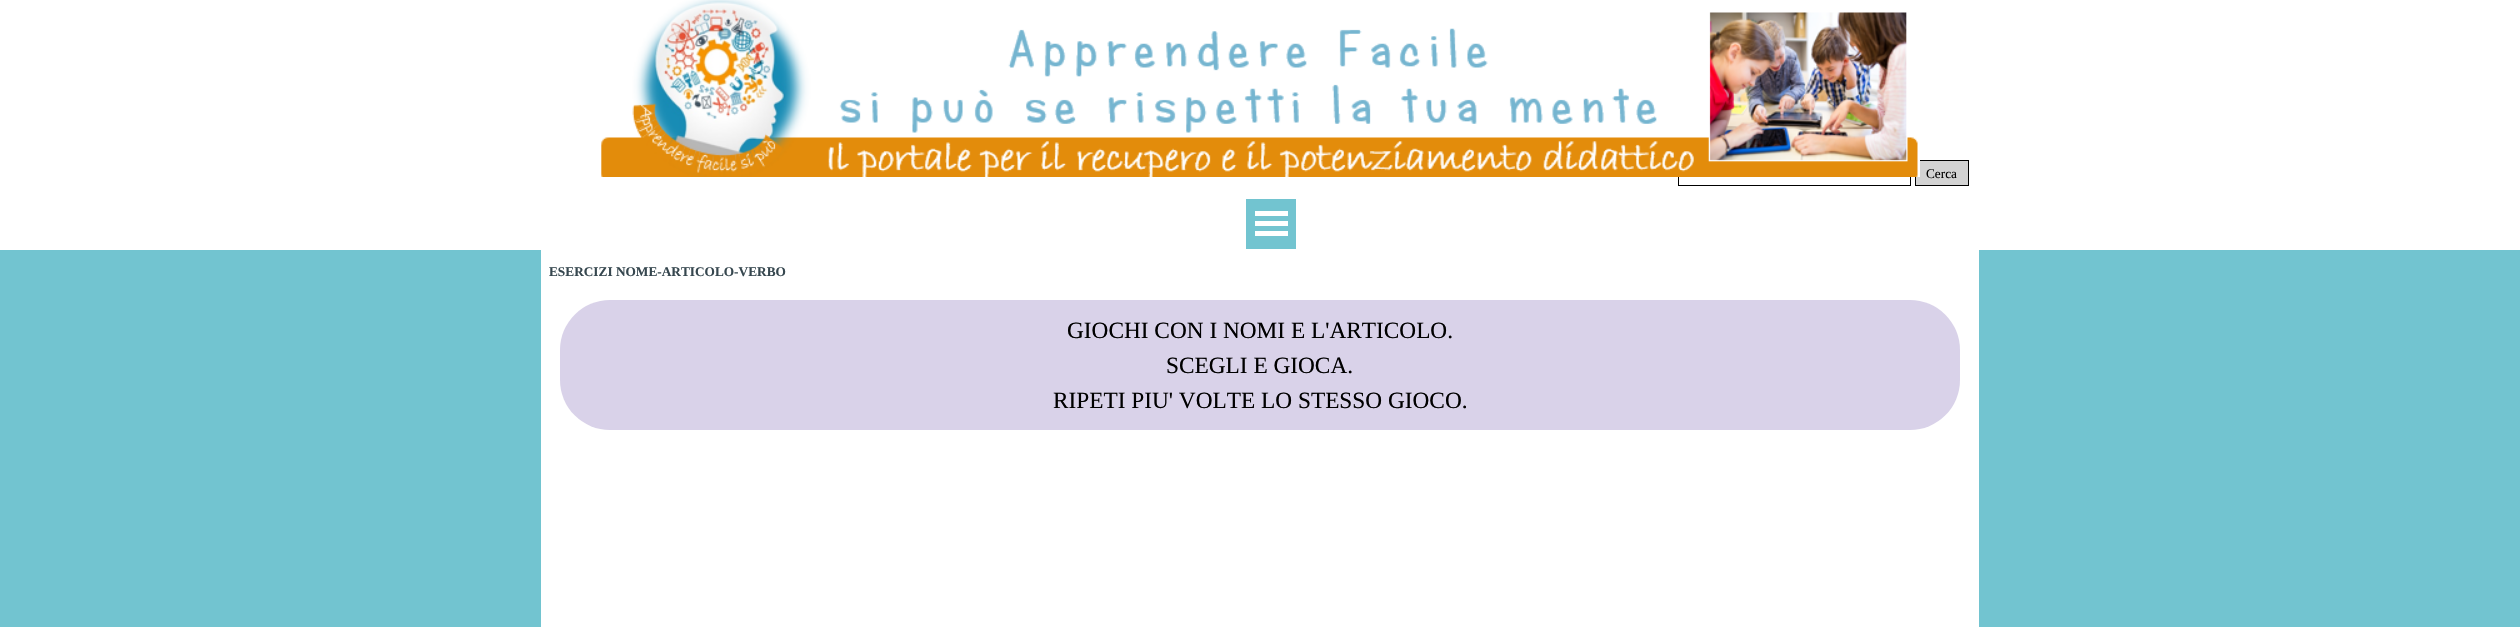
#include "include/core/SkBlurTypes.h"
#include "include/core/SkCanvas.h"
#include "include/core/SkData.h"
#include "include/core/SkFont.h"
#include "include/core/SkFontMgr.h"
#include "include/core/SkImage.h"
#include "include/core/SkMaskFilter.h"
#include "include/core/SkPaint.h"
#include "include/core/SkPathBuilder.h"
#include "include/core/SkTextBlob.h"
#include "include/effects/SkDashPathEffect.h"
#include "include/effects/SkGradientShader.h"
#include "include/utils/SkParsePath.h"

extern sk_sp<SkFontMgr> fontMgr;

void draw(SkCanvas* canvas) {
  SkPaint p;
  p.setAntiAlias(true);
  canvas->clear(SkColorSetRGB(114, 196, 208));
  p.setColor(SK_ColorWHITE);
  canvas->drawRect(SkRect::MakeLTRB(0, 0, 2520, 250), p);
  p.setStyle(SkPaint::kStroke_Style);
  p.setStrokeWidth(1);
  p.setColor(SK_ColorBLACK);
  canvas->drawRect(SkRect::MakeLTRB(1678.5f, 160.5f, 1910.5f, 185.5f), p);
  p.setStyle(SkPaint::kFill_Style);
  p.setColor(SkColorSetRGB(211, 211, 211));
  canvas->drawRect(SkRect::MakeLTRB(1915.5f, 160.5f, 1968.5f, 185.5f), p);
  p.setStyle(SkPaint::kStroke_Style);
  p.setColor(SK_ColorBLACK);
  canvas->drawRect(SkRect::MakeLTRB(1915.5f, 160.5f, 1968.5f, 185.5f), p);
  canvas->drawImageRect(SkImages::DeferredFromEncodedData(SkData::MakeFromFileName("images/1.png")), SkRect::MakeLTRB(601, 0, 1920, 177), SkSamplingOptions());
  p.setStyle(SkPaint::kFill_Style);
  p.setColor(SkColorSetRGB(114, 196, 208));
  canvas->drawRect(SkRect::MakeLTRB(1246, 199, 1296, 249), p);
  p.setColor(SK_ColorWHITE);
  canvas->drawRect(SkRect::MakeLTRB(1255, 211, 1288, 216), p);
  canvas->drawRect(SkRect::MakeLTRB(1255, 221, 1288, 226), p);
  canvas->drawRect(SkRect::MakeLTRB(1255, 231, 1288, 236), p);
  canvas->drawRect(SkRect::MakeLTRB(541, 250, 1979, 627), p);
  p.setColor(SkColorSetRGB(217, 210, 233));
  canvas->drawRoundRect(SkRect::MakeLTRB(560, 300, 1960, 430), 50, 50, p);
  SkFont font1(fontMgr->matchFamilyStyle("Liberation Serif", SkFontStyle::Normal()), 13.3f);
  font1.setSubpixel(true);
  p.setColor(SK_ColorBLACK);
  canvas->drawString("Cerca", 1926, 178, font1, p);
  SkFont font2(fontMgr->matchFamilyStyle("Liberation Serif", SkFontStyle::Bold()), 13.3f);
  font2.setSubpixel(true);
  p.setColor(SkColorSetRGB(54, 71, 79));
  canvas->drawString("ESERCIZI NOME-ARTICOLO-VERBO", 549, 276, font2, p);
  SkFont font3(fontMgr->matchFamilyStyle("Liberation Serif", SkFontStyle::Normal()), 23.3f);
  font3.setSubpixel(true);
  p.setColor(SK_ColorBLACK);
  canvas->drawString("GIOCHI CON I NOMI E L'ARTICOLO.", 1067, 338, font3, p);
  canvas->drawString("SCEGLI E GIOCA.", 1166, 373, font3, p);
  canvas->drawString("RIPETI PIU' VOLTE LO STESSO GIOCO.", 1053, 408, font3, p);
}
